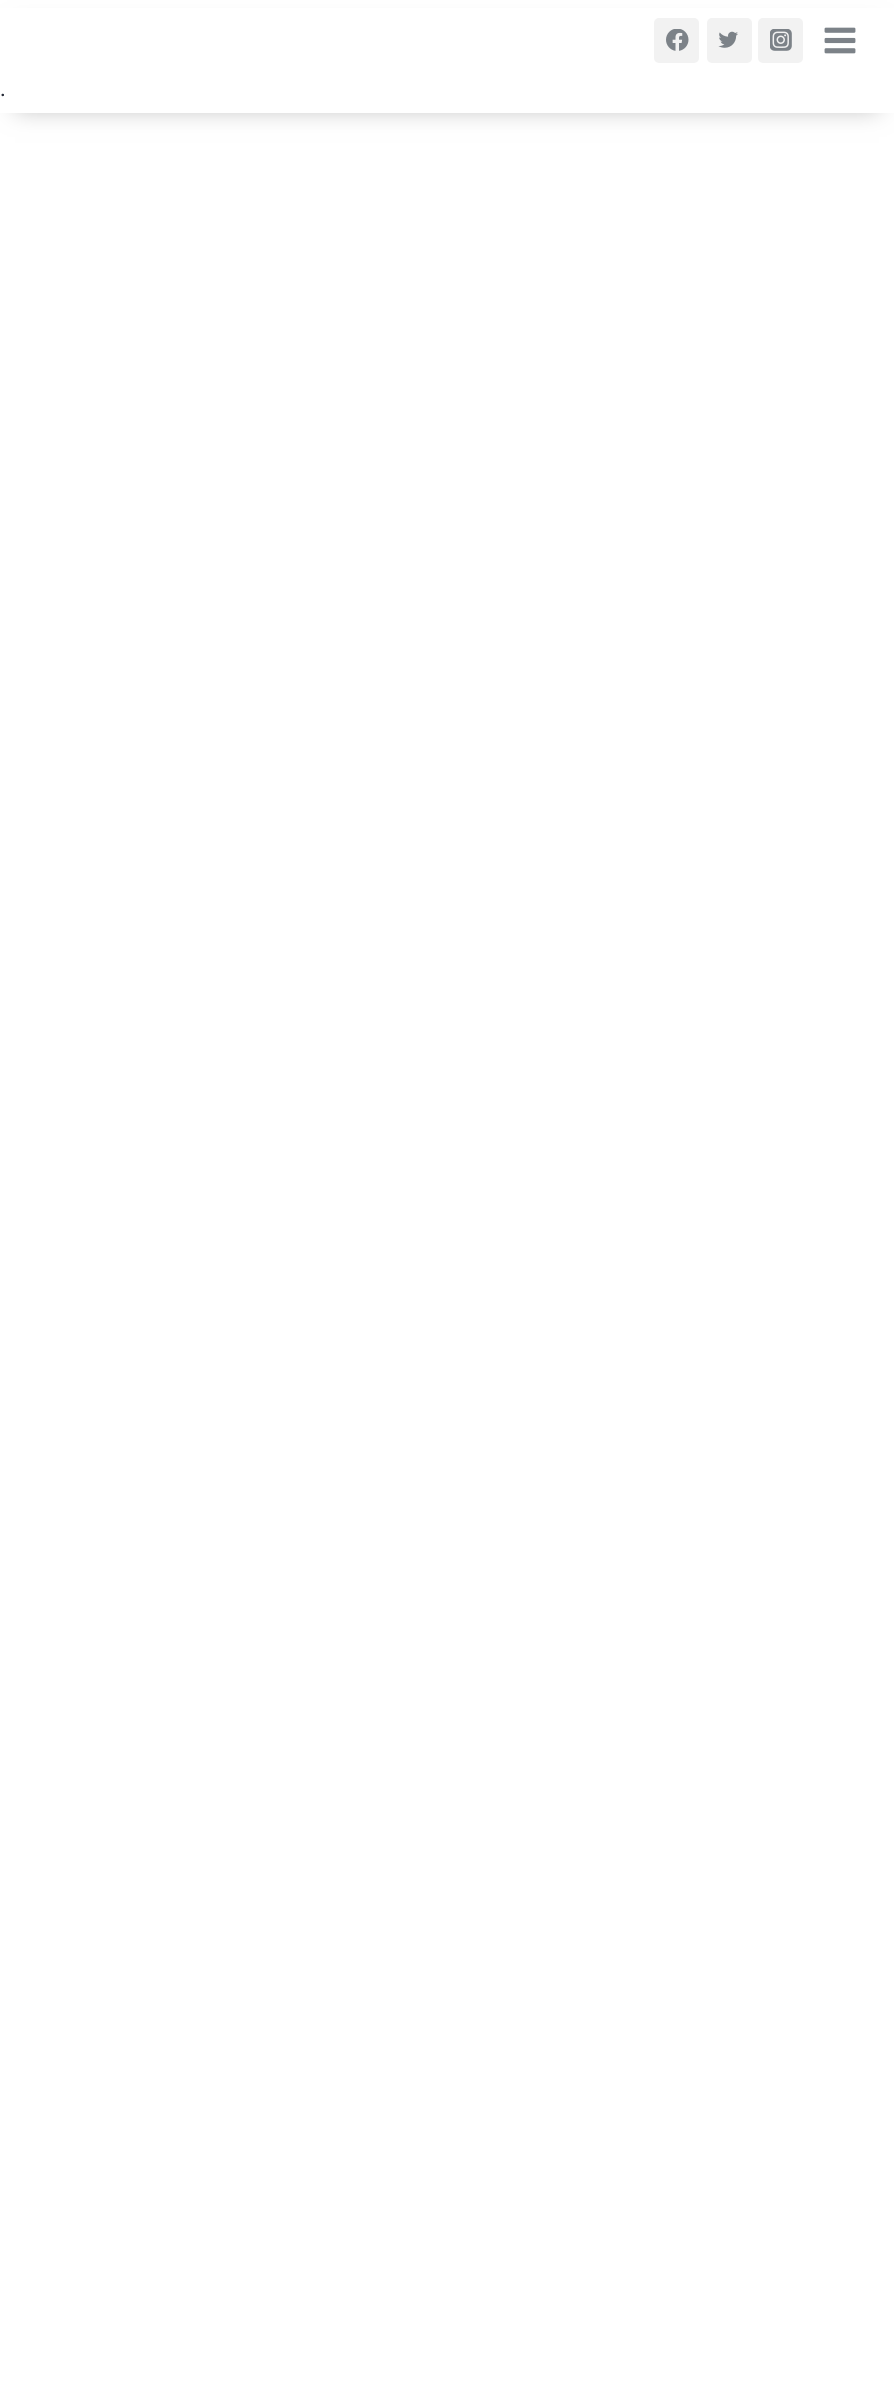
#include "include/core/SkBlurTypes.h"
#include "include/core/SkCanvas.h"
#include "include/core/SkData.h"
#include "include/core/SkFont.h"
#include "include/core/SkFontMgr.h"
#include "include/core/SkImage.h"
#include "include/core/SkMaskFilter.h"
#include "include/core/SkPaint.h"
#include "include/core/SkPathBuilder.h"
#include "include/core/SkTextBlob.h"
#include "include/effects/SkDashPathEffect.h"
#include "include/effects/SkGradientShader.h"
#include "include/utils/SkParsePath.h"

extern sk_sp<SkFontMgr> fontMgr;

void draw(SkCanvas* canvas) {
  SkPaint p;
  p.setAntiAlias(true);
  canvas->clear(SK_ColorWHITE);
  p.setColor(SkColorSetARGB(64, 0, 0, 0));
  p.setMaskFilter(SkMaskFilter::MakeBlur(kNormal_SkBlurStyle, 11));
  canvas->drawRect(SkRect::MakeLTRB(15, 27, 879, 110), p);
  p.setMaskFilter(nullptr);
  p.setColor(SK_ColorWHITE);
  canvas->drawRect(SkRect::MakeLTRB(0, 8, 894, 113), p);
  p.setColor(SkColorSetRGB(242, 242, 242));
  canvas->drawRoundRect(SkRect::MakeLTRB(654, 18, 699, 63), 5, 5, p);
  canvas->drawImageRect(SkImages::DeferredFromEncodedData(SkData::MakeFromFileName("images/1.png")), SkRect::MakeLTRB(666, 29, 689, 51), SkSamplingOptions());
  canvas->drawRoundRect(SkRect::MakeLTRB(707, 18, 752, 63), 5, 5, p);
  canvas->drawImageRect(SkImages::DeferredFromEncodedData(SkData::MakeFromFileName("images/2.png")), SkRect::MakeLTRB(718, 31, 738, 48), SkSamplingOptions());
  canvas->drawRoundRect(SkRect::MakeLTRB(758, 18, 803, 63), 5, 5, p);
  canvas->drawImageRect(SkImages::DeferredFromEncodedData(SkData::MakeFromFileName("images/3.png")), SkRect::MakeLTRB(770, 29, 792, 51), SkSamplingOptions());
  canvas->drawImageRect(SkImages::DeferredFromEncodedData(SkData::MakeFromFileName("images/4.png")), SkRect::MakeLTRB(824, 27, 856, 54), SkSamplingOptions());
  SkFont font1(fontMgr->matchFamilyStyle("Roboto", SkFontStyle::Normal()), 22);
  font1.setSubpixel(true);
  p.setColor(SkColorSetRGB(37, 43, 55));
  canvas->drawString(".", 0, 96, font1, p);
}
